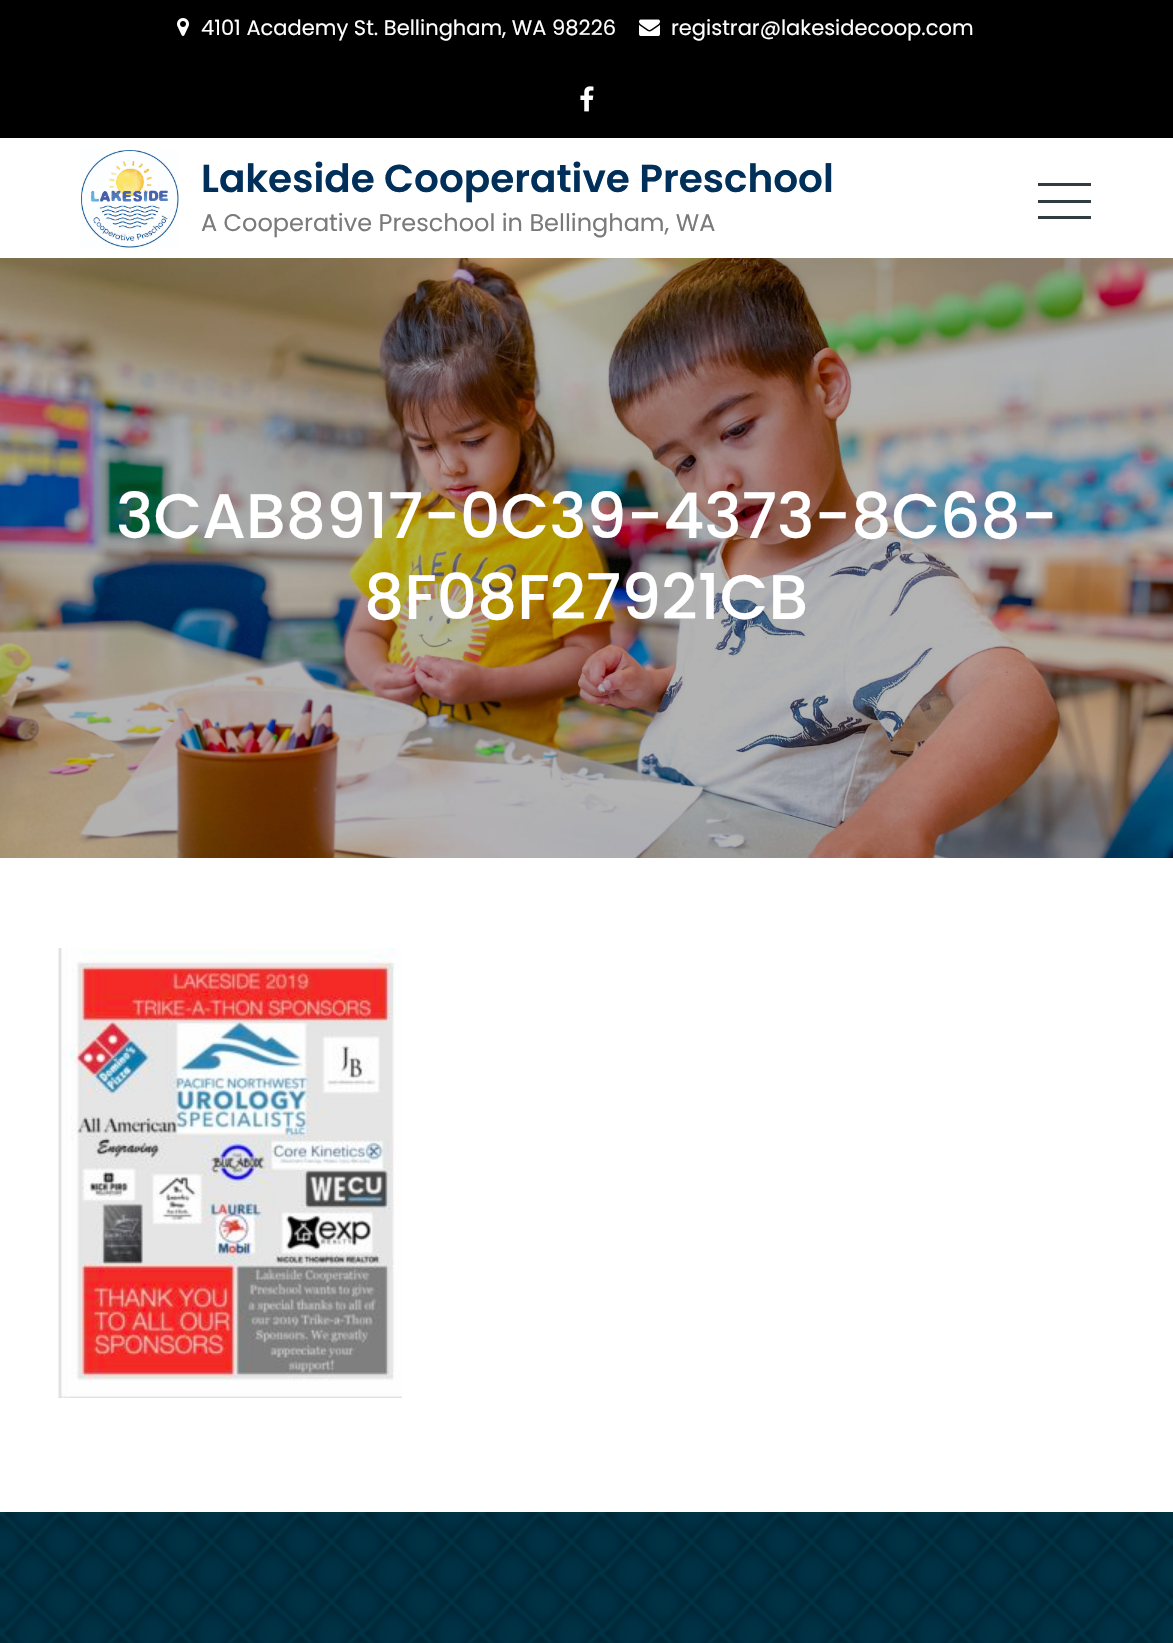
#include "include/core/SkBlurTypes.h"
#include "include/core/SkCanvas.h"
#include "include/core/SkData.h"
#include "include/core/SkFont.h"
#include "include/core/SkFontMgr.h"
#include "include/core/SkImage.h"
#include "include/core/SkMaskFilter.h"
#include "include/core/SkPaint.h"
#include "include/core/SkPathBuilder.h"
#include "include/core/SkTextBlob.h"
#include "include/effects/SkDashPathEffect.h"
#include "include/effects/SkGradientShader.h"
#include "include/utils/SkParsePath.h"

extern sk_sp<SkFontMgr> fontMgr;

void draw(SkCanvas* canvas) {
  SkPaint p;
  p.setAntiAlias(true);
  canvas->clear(SK_ColorWHITE);
  p.setColor(SK_ColorBLACK);
  canvas->drawRect(SkRect::MakeLTRB(0, 0, 1173, 138), p);
  canvas->drawImageRect(SkImages::DeferredFromEncodedData(SkData::MakeFromFileName("images/1.png")), SkRect::MakeLTRB(177, 18, 189, 36), SkSamplingOptions());
  canvas->drawImageRect(SkImages::DeferredFromEncodedData(SkData::MakeFromFileName("images/2.png")), SkRect::MakeLTRB(639, 19, 660, 36), SkSamplingOptions());
  canvas->drawImageRect(SkImages::DeferredFromEncodedData(SkData::MakeFromFileName("images/3.png")), SkRect::MakeLTRB(580, 86, 594, 112), SkSamplingOptions());
  canvas->drawImageRect(SkImages::DeferredFromEncodedData(SkData::MakeFromFileName("images/4.png")), SkRect::MakeLTRB(81, 150, 179, 248), SkSamplingOptions());
  p.setColor(SkColorSetRGB(47, 60, 67));
  canvas->drawRect(SkRect::MakeLTRB(1038, 183, 1091, 186), p);
  canvas->drawRect(SkRect::MakeLTRB(1038, 200, 1091, 203), p);
  canvas->drawRect(SkRect::MakeLTRB(1038, 216, 1091, 219), p);
  canvas->drawImageRect(SkImages::DeferredFromEncodedData(SkData::MakeFromFileName("images/5.png")), SkRect::MakeLTRB(0, 258, 1173, 858), SkSamplingOptions());
  canvas->drawImageRect(SkImages::DeferredFromEncodedData(SkData::MakeFromFileName("images/6.png")), SkRect::MakeLTRB(58, 948, 402, 1398), SkSamplingOptions());
  canvas->drawImageRect(SkImages::DeferredFromEncodedData(SkData::MakeFromFileName("images/7.png")), SkRect::MakeLTRB(0, 1512, 1173, 1643), SkSamplingOptions());
  SkFont font1(fontMgr->matchFamilyStyle("Poppins", SkFontStyle::Normal()), 21);
  font1.setSubpixel(true);
  p.setColor(SK_ColorWHITE);
  canvas->drawString("4101 Academy St. Bellingham, WA 98226", 201, 35, font1, p);
  canvas->drawString("registrar@lakesidecoop.com", 671, 35, font1, p);
  SkFont font2(fontMgr->matchFamilyStyle("Poppins", SkFontStyle(600, SkFontStyle::kNormal_Width, SkFontStyle::kUpright_Slant)), 39);
  font2.setSubpixel(true);
  p.setColor(SkColorSetRGB(0, 47, 89));
  canvas->drawString("Lakeside Cooperative Preschool", 201, 192, font2, p);
  SkFont font3(fontMgr->matchFamilyStyle("Poppins", SkFontStyle::Normal()), 24);
  font3.setSubpixel(true);
  p.setColor(SkColorSetRGB(122, 122, 122));
  canvas->drawString("A Cooperative Preschool in Bellingham, WA", 201, 231, font3, p);
  SkFont font4(fontMgr->matchFamilyStyle("Poppins", SkFontStyle(500, SkFontStyle::kNormal_Width, SkFontStyle::kUpright_Slant)), 63);
  font4.setSubpixel(true);
  p.setColor(SK_ColorWHITE);
  canvas->drawString("3CAB8917-0C39-4373-8C68-", 116, 538, font4, p);
  canvas->drawString("8F08F27921CB", 364, 619, font4, p);
}
